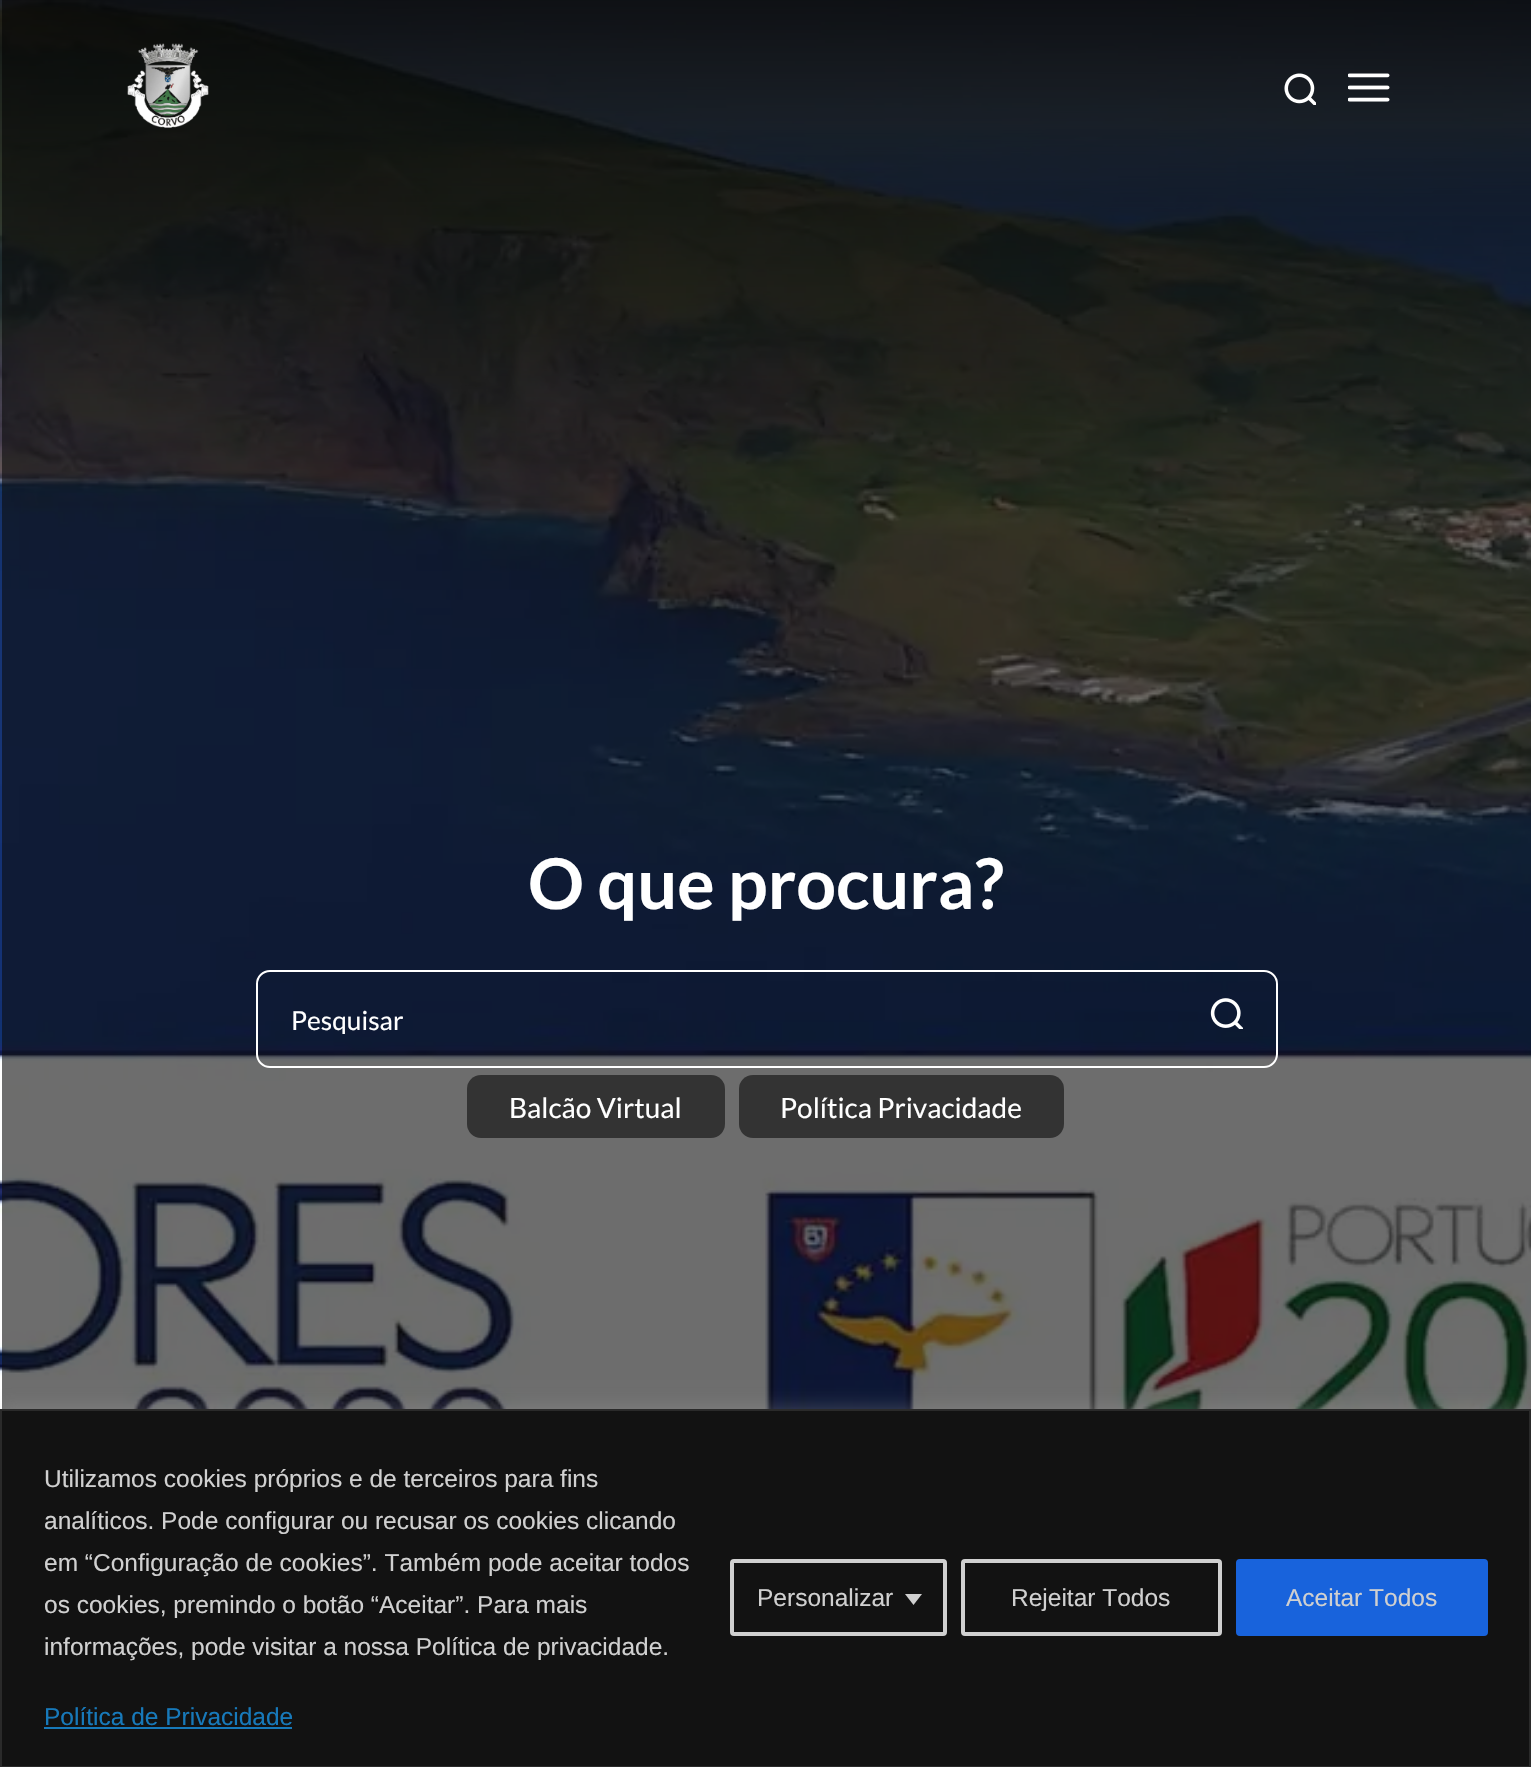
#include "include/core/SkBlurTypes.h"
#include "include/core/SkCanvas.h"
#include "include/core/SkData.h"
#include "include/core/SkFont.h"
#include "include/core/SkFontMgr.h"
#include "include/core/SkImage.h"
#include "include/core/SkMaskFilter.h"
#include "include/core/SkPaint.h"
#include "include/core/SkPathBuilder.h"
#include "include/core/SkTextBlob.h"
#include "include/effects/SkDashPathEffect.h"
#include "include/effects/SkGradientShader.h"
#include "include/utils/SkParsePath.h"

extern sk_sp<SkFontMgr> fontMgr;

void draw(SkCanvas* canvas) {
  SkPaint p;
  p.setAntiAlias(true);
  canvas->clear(SK_ColorWHITE);
  canvas->drawImageRect(SkImages::DeferredFromEncodedData(SkData::MakeFromFileName("images/4.png")), SkRect::MakeLTRB(0, 0, 1531, 1409), SkSamplingOptions());
  {
    const SkColor colors[] = {SkColorSetARGB(204, 0, 0, 0), SkColorSetARGB(0, 0, 0, 0)};
    const float stops[] = {0, 0.3f};
    const SkPoint ends[] = {{766, 0}, {766, 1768}};
    p.setShader(SkGradientShader::MakeLinear(ends, colors, stops, 2, SkTileMode::kClamp));
    p.setAlpha(255);
  }
  canvas->drawRect(SkRect::MakeLTRB(0, 0, 1531, 514), p);
  canvas->drawImageRect(SkImages::DeferredFromEncodedData(SkData::MakeFromFileName("images/1.png")), SkRect::MakeLTRB(1284, 73, 1316, 105), SkSamplingOptions());
  canvas->drawImageRect(SkImages::DeferredFromEncodedData(SkData::MakeFromFileName("images/2.png")), SkRect::MakeLTRB(1348, 73, 1390, 102), SkSamplingOptions());
  canvas->drawImageRect(SkImages::DeferredFromEncodedData(SkData::MakeFromFileName("images/3.png")), SkRect::MakeLTRB(127, 43, 209, 128), SkSamplingOptions());
  p.setStyle(SkPaint::kStroke_Style);
  p.setStrokeWidth(2);
  p.setShader(nullptr);
  p.setColor(SK_ColorWHITE);
  canvas->drawRoundRect(SkRect::MakeLTRB(257, 971, 1277, 1067), 13, 13, p);
  canvas->drawImageRect(SkImages::DeferredFromEncodedData(SkData::MakeFromFileName("images/5.png")), SkRect::MakeLTRB(1210, 998, 1243, 1029), SkSamplingOptions());
  p.setStyle(SkPaint::kFill_Style);
  p.setColor(SkColorSetRGB(51, 51, 51));
  canvas->drawRoundRect(SkRect::MakeLTRB(467, 1075, 725, 1138), 14, 14, p);
  canvas->drawRoundRect(SkRect::MakeLTRB(739, 1075, 1064, 1138), 14, 14, p);
  p.setColor(SkColorSetARGB(77, 172, 171, 171));
  p.setMaskFilter(SkMaskFilter::MakeBlur(kNormal_SkBlurStyle, 9));
  canvas->drawRect(SkRect::MakeLTRB(0, 1407, 1531, 1766), p);
  p.setMaskFilter(nullptr);
  p.setColor(SkColorSetRGB(18, 18, 18));
  canvas->drawRect(SkRect::MakeLTRB(1, 1410, 1530, 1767), p);
  p.setStyle(SkPaint::kStroke_Style);
  p.setColor(SkColorSetRGB(42, 42, 42));
  canvas->drawRect(SkRect::MakeLTRB(1, 1410, 1530, 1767), p);
  p.setStyle(SkPaint::kFill_Style);
  p.setColor(SkColorSetRGB(23, 121, 186));
  canvas->drawRect(SkRect::MakeLTRB(44, 1727, 292, 1729), p);
  p.setStyle(SkPaint::kStroke_Style);
  p.setStrokeWidth(4);
  p.setColor(SkColorSetRGB(208, 208, 208));
  canvas->drawRoundRect(SkRect::MakeLTRB(732, 1561, 945, 1634), 2, 2, p);
  p.setStyle(SkPaint::kFill_Style);
  canvas->drawPath(SkPathBuilder().moveTo(905, 1594).lineTo(922, 1594).lineTo(913.5f, 1605).close().detach(), p);
  p.setStyle(SkPaint::kStroke_Style);
  canvas->drawRoundRect(SkRect::MakeLTRB(963, 1561, 1220, 1634), 2, 2, p);
  p.setStyle(SkPaint::kFill_Style);
  p.setColor(SkColorSetRGB(24, 99, 220));
  canvas->drawRoundRect(SkRect::MakeLTRB(1238, 1561, 1486, 1634), 2, 2, p);
  p.setStyle(SkPaint::kStroke_Style);
  canvas->drawRoundRect(SkRect::MakeLTRB(1238, 1561, 1486, 1634), 2, 2, p);
  SkFont font1(fontMgr->matchFamilyStyle("Lato", SkFontStyle::Bold()), 70);
  font1.setSubpixel(true);
  p.setStyle(SkPaint::kFill_Style);
  p.setColor(SK_ColorWHITE);
  canvas->drawString("O que procura?", 528, 909, font1, p);
  canvas->save();
  canvas->clipRect(SkRect::MakeLTRB(292, 1003, 1171, 1034));
  SkFont font2(fontMgr->matchFamilyStyle("Lato", SkFontStyle::Normal()), 26.25f);
  font2.setSubpixel(true);
  canvas->drawString("Pesquisar", 291, 1030, font2, p);
  canvas->restore();
  SkFont font3(fontMgr->matchFamilyStyle("Lato", SkFontStyle::Normal()), 28);
  font3.setSubpixel(true);
  canvas->drawString("Balcão Virtual", 509, 1118, font3, p);
  canvas->drawString("Política Privacidade", 780, 1118, font3, p);
  SkFont font4(fontMgr->matchFamilyStyle("Liberation Sans", SkFontStyle::Normal()), 24.5f);
  font4.setSubpixel(true);
  p.setColor(SkColorSetRGB(208, 208, 208));
  canvas->drawString("Utilizamos cookies próprios e de terceiros para fins", 44, 1487, font4, p);
  canvas->drawString("analíticos. Pode configurar ou recusar os cookies clicando", 44, 1529, font4, p);
  canvas->drawString("em “Configuração de cookies”. Também pode aceitar todos", 44, 1571, font4, p);
  canvas->drawString("os cookies, premindo o botão “Aceitar”. Para mais", 44, 1613, font4, p);
  canvas->drawString("informações, pode visitar a nossa Política de privacidade.", 44, 1655, font4, p);
  p.setColor(SkColorSetRGB(23, 121, 186));
  canvas->drawString("Política de Privacidade", 44, 1725, font4, p);
  p.setColor(SkColorSetRGB(208, 208, 208));
  canvas->drawString("Personalizar", 757, 1606, font4, p);
  canvas->drawString("Rejeitar Todos", 1011, 1606, font4, p);
  canvas->drawString("Aceitar Todos", 1286, 1606, font4, p);
}
